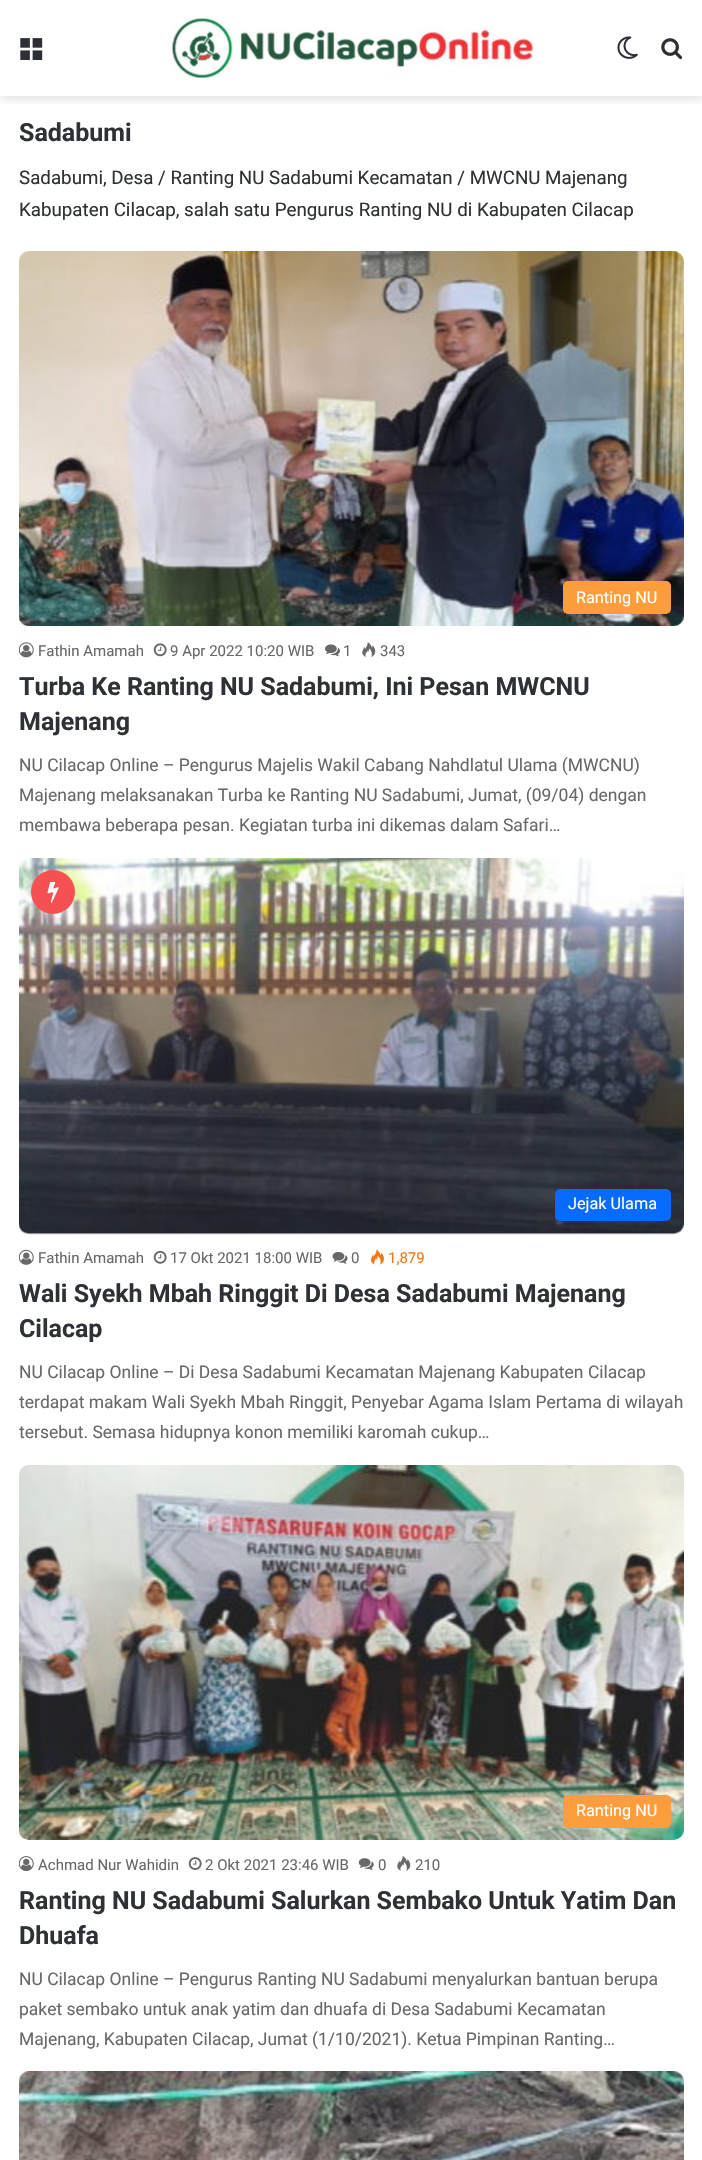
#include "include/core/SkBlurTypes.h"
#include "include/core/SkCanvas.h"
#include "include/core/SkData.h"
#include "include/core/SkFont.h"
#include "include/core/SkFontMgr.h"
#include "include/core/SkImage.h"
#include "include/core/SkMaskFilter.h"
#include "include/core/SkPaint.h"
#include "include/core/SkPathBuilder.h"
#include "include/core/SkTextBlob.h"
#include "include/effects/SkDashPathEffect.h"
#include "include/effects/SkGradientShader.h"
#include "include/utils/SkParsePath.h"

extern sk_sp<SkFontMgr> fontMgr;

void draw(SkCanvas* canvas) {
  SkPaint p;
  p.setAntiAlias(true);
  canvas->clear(SK_ColorWHITE);
  canvas->save();
  canvas->clipRect(SkRect::MakeLTRB(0, 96, 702, 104));
  p.setColor(SkColorSetARGB(26, 0, 0, 0));
  p.setMaskFilter(SkMaskFilter::MakeBlur(kNormal_SkBlurStyle, 4.5f));
  canvas->drawRect(SkRect::MakeLTRB(0, 4, 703, 100), p);
  p.setMaskFilter(nullptr);
  canvas->restore();
  canvas->drawImageRect(SkImages::DeferredFromEncodedData(SkData::MakeFromFileName("images/1.png")), SkRect::MakeLTRB(20, 38, 43, 60), SkSamplingOptions());
  canvas->drawImageRect(SkImages::DeferredFromEncodedData(SkData::MakeFromFileName("images/2.png")), SkRect::MakeLTRB(167, 17, 535, 79), SkSamplingOptions());
  canvas->drawImageRect(SkImages::DeferredFromEncodedData(SkData::MakeFromFileName("images/3.png")), SkRect::MakeLTRB(617, 36, 638, 59), SkSamplingOptions());
  canvas->drawImageRect(SkImages::DeferredFromEncodedData(SkData::MakeFromFileName("images/4.png")), SkRect::MakeLTRB(661, 38, 683, 60), SkSamplingOptions());
  canvas->drawImageRect(SkImages::DeferredFromEncodedData(SkData::MakeFromFileName("images/5.png")), SkRect::MakeLTRB(19, 251, 684, 626), SkSamplingOptions());
  p.setColor(SkColorSetRGB(255, 157, 60));
  canvas->drawRoundRect(SkRect::MakeLTRB(563, 581, 671, 614), 5, 5, p);
  canvas->drawImageRect(SkImages::DeferredFromEncodedData(SkData::MakeFromFileName("images/6.png")), SkRect::MakeLTRB(19, 642, 34, 658), SkSamplingOptions());
  canvas->drawImageRect(SkImages::DeferredFromEncodedData(SkData::MakeFromFileName("images/7.png")), SkRect::MakeLTRB(153, 643, 167, 657), SkSamplingOptions());
  canvas->drawImageRect(SkImages::DeferredFromEncodedData(SkData::MakeFromFileName("images/8.png")), SkRect::MakeLTRB(325, 644, 340, 657), SkSamplingOptions());
  canvas->drawImageRect(SkImages::DeferredFromEncodedData(SkData::MakeFromFileName("images/9.png")), SkRect::MakeLTRB(362, 642, 376, 657), SkSamplingOptions());
  canvas->drawImageRect(SkImages::DeferredFromEncodedData(SkData::MakeFromFileName("images/10.png")), SkRect::MakeLTRB(19, 858, 684, 1235), SkSamplingOptions());
  p.setColor(SkColorSetRGB(246, 80, 80));
  canvas->drawCircle(53, 892, 22, p);
  canvas->drawImageRect(SkImages::DeferredFromEncodedData(SkData::MakeFromFileName("images/11.png")), SkRect::MakeLTRB(47, 881, 59, 903), SkSamplingOptions());
  p.setColor(SkColorSetRGB(8, 107, 255));
  canvas->drawRoundRect(SkRect::MakeLTRB(555, 1189, 671, 1221), 5, 5, p);
  canvas->drawImageRect(SkImages::DeferredFromEncodedData(SkData::MakeFromFileName("images/12.png")), SkRect::MakeLTRB(19, 1249, 34, 1265), SkSamplingOptions());
  canvas->drawImageRect(SkImages::DeferredFromEncodedData(SkData::MakeFromFileName("images/13.png")), SkRect::MakeLTRB(153, 1250, 167, 1264), SkSamplingOptions());
  canvas->drawImageRect(SkImages::DeferredFromEncodedData(SkData::MakeFromFileName("images/14.png")), SkRect::MakeLTRB(332, 1252, 348, 1264), SkSamplingOptions());
  canvas->drawImageRect(SkImages::DeferredFromEncodedData(SkData::MakeFromFileName("images/15.png")), SkRect::MakeLTRB(371, 1249, 384, 1265), SkSamplingOptions());
  canvas->drawImageRect(SkImages::DeferredFromEncodedData(SkData::MakeFromFileName("images/16.png")), SkRect::MakeLTRB(19, 1465, 684, 1840), SkSamplingOptions());
  p.setColor(SkColorSetRGB(255, 157, 60));
  canvas->drawRoundRect(SkRect::MakeLTRB(563, 1795, 671, 1828), 5, 5, p);
  canvas->drawImageRect(SkImages::DeferredFromEncodedData(SkData::MakeFromFileName("images/17.png")), SkRect::MakeLTRB(19, 1856, 34, 1872), SkSamplingOptions());
  canvas->drawImageRect(SkImages::DeferredFromEncodedData(SkData::MakeFromFileName("images/18.png")), SkRect::MakeLTRB(188, 1857, 202, 1870), SkSamplingOptions());
  canvas->drawImageRect(SkImages::DeferredFromEncodedData(SkData::MakeFromFileName("images/19.png")), SkRect::MakeLTRB(358, 1858, 374, 1870), SkSamplingOptions());
  canvas->drawImageRect(SkImages::DeferredFromEncodedData(SkData::MakeFromFileName("images/20.png")), SkRect::MakeLTRB(397, 1856, 411, 1871), SkSamplingOptions());
  canvas->drawImageRect(SkImages::DeferredFromEncodedData(SkData::MakeFromFileName("images/21.png")), SkRect::MakeLTRB(19, 2071, 684, 2160), SkSamplingOptions());
  SkFont font1(fontMgr->matchFamilyStyle("Roboto", SkFontStyle::Bold()), 25);
  font1.setSubpixel(true);
  p.setColor(SkColorSetRGB(46, 49, 54));
  canvas->drawString("Sadabumi", 19, 141, font1, p);
  SkFont font2(fontMgr->matchFamilyStyle("Roboto", SkFontStyle::Normal()), 18.75f);
  font2.setSubpixel(true);
  canvas->drawString("Sadabumi, Desa / Ranting NU Sadabumi Kecamatan / MWCNU Majenang", 19, 184, font2, p);
  canvas->drawString("Kabupaten Cilacap, salah satu Pengurus Ranting NU di Kabupaten Cilacap", 19, 216, font2, p);
  SkFont font3(fontMgr->matchFamilyStyle("Roboto", SkFontStyle::Normal()), 16.25f);
  font3.setSubpixel(true);
  p.setColor(SK_ColorWHITE);
  canvas->drawString("Ranting NU", 576, 603, font3, p);
  SkFont font4(fontMgr->matchFamilyStyle("Roboto", SkFontStyle::Normal()), 15);
  font4.setSubpixel(true);
  p.setColor(SkColorSetRGB(104, 104, 104));
  canvas->drawString("Fathin Amamah", 38, 656, font4, p);
  canvas->drawString("9 Apr 2022 10:20 WIB", 170, 656, font4, p);
  canvas->drawString("1", 343, 656, font4, p);
  canvas->drawString("343", 380, 656, font4, p);
  p.setColor(SkColorSetRGB(46, 49, 54));
  canvas->drawString("Turba Ke Ranting NU Sadabumi, Ini Pesan MWCNU", 19, 695, font1, p);
  canvas->drawString("Majenang", 19, 730, font1, p);
  SkFont font5(fontMgr->matchFamilyStyle("Roboto", SkFontStyle::Normal()), 17.5f);
  font5.setSubpixel(true);
  p.setColor(SkColorSetRGB(104, 104, 104));
  canvas->drawString("NU Cilacap Online – Pengurus Majelis Wakil Cabang Nahdlatul Ulama (MWCNU)", 19, 771, font5, p);
  canvas->drawString("Majenang melaksanakan Turba ke Ranting NU Sadabumi, Jumat, (09/04) dengan", 19, 801, font5, p);
  canvas->drawString("membawa beberapa pesan. Kegiatan turba ini dikemas dalam Safari…", 19, 831, font5, p);
  p.setColor(SK_ColorWHITE);
  canvas->drawString("Jejak Ulama", 568, 1209, font3, p);
  p.setColor(SkColorSetRGB(104, 104, 104));
  canvas->drawString("Fathin Amamah", 38, 1263, font4, p);
  canvas->drawString("17 Okt 2021 18:00 WIB", 170, 1263, font4, p);
  canvas->drawString("0", 351, 1263, font4, p);
  p.setColor(SkColorSetRGB(244, 118, 20));
  canvas->drawString("1,879", 388, 1263, font4, p);
  p.setColor(SkColorSetRGB(46, 49, 54));
  canvas->drawString("Wali Syekh Mbah Ringgit Di Desa Sadabumi Majenang", 19, 1302, font1, p);
  canvas->drawString("Cilacap", 19, 1337, font1, p);
  p.setColor(SkColorSetRGB(104, 104, 104));
  canvas->drawString("NU Cilacap Online – Di Desa Sadabumi Kecamatan Majenang Kabupaten Cilacap", 19, 1378, font5, p);
  canvas->drawString("terdapat makam Wali Syekh Mbah Ringgit, Penyebar Agama Islam Pertama di wilayah", 19, 1408, font5, p);
  canvas->drawString("tersebut. Semasa hidupnya konon memiliki karomah cukup…", 19, 1438, font5, p);
  p.setColor(SK_ColorWHITE);
  canvas->drawString("Ranting NU", 576, 1816, font3, p);
  p.setColor(SkColorSetRGB(104, 104, 104));
  canvas->drawString("Achmad Nur Wahidin", 38, 1870, font4, p);
  canvas->drawString("2 Okt 2021 23:46 WIB", 205, 1870, font4, p);
  canvas->drawString("0", 378, 1870, font4, p);
  canvas->drawString("210", 415, 1870, font4, p);
  p.setColor(SkColorSetRGB(46, 49, 54));
  canvas->drawString("Ranting NU Sadabumi Salurkan Sembako Untuk Yatim Dan", 19, 1909, font1, p);
  canvas->drawString("Dhuafa", 19, 1944, font1, p);
  p.setColor(SkColorSetRGB(104, 104, 104));
  canvas->drawString("NU Cilacap Online – Pengurus Ranting NU Sadabumi menyalurkan bantuan berupa", 19, 1985, font5, p);
  canvas->drawString("paket sembako untuk anak yatim dan dhuafa di Desa Sadabumi Kecamatan", 19, 2015, font5, p);
  canvas->drawString("Majenang, Kabupaten Cilacap, Jumat (1/10/2021). Ketua Pimpinan Ranting…", 19, 2045, font5, p);
}
